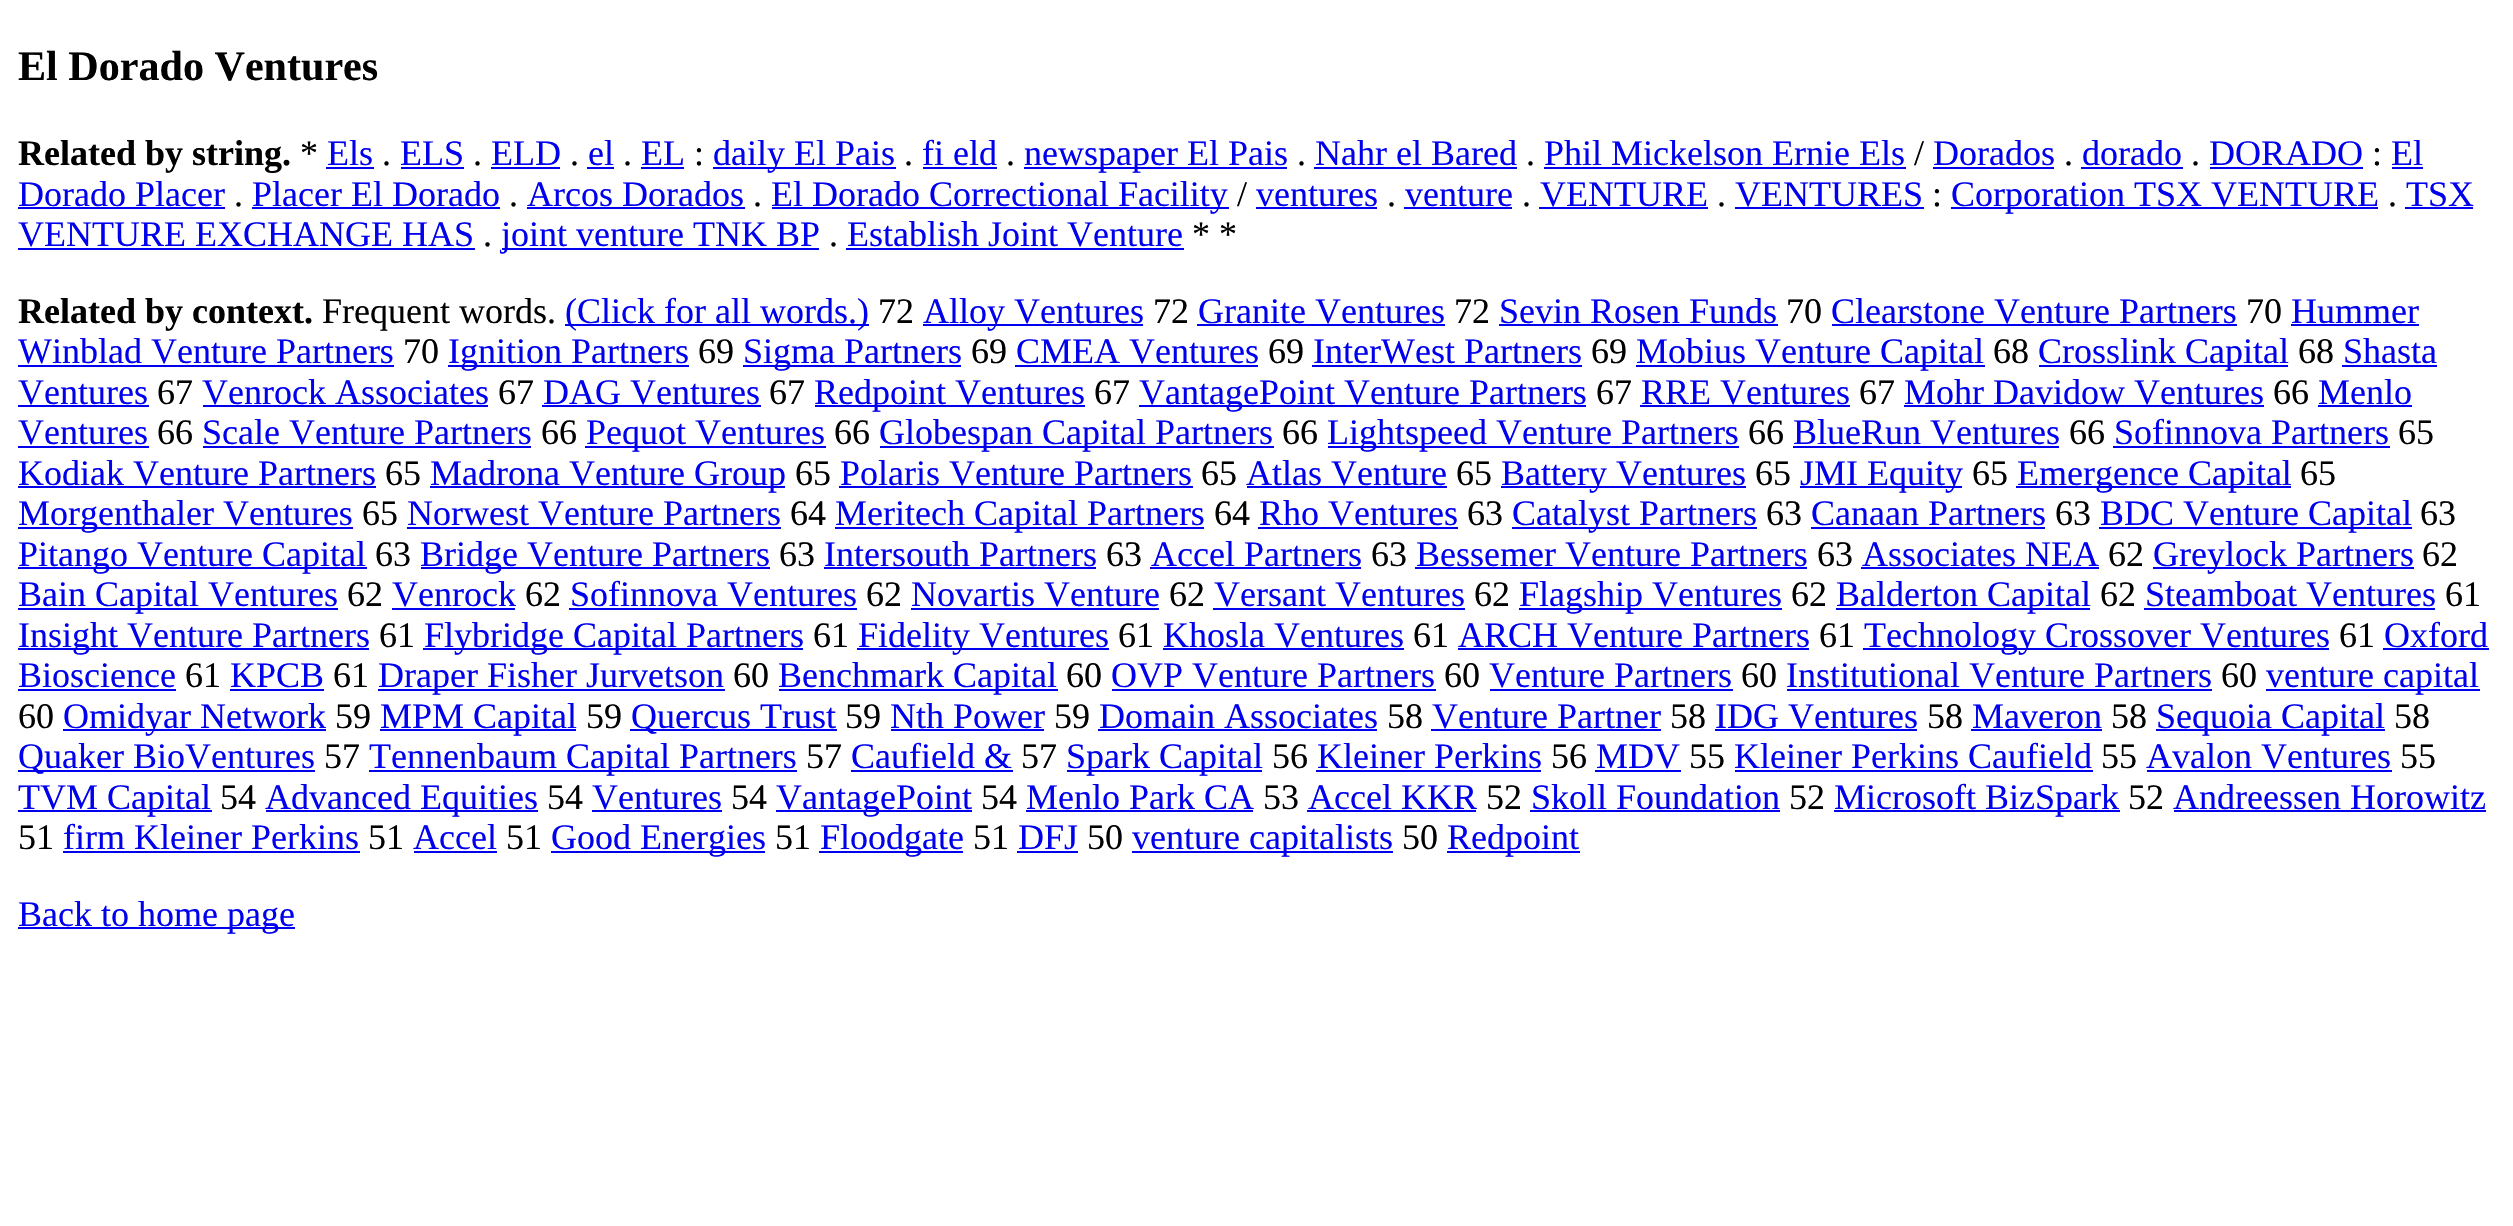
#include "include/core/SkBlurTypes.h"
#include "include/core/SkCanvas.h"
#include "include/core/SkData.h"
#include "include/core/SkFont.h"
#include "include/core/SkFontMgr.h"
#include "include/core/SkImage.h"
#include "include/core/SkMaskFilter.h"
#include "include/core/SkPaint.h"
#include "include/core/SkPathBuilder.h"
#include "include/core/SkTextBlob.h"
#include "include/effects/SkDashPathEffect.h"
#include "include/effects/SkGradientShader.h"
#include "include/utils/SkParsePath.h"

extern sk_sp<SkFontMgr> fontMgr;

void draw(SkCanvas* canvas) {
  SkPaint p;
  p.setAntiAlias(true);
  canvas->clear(SK_ColorWHITE);
  p.setColor(SkColorSetRGB(0, 0, 238));
  canvas->drawRect(SkRect::MakeLTRB(326, 167, 374, 169), p);
  canvas->drawRect(SkRect::MakeLTRB(401, 167, 464, 169), p);
  canvas->drawRect(SkRect::MakeLTRB(491, 167, 560, 169), p);
  canvas->drawRect(SkRect::MakeLTRB(587, 167, 614, 169), p);
  canvas->drawRect(SkRect::MakeLTRB(641, 167, 684, 169), p);
  canvas->drawRect(SkRect::MakeLTRB(713, 167, 896, 169), p);
  canvas->drawRect(SkRect::MakeLTRB(923, 167, 997, 169), p);
  canvas->drawRect(SkRect::MakeLTRB(1024, 167, 1287, 169), p);
  canvas->drawRect(SkRect::MakeLTRB(1314, 167, 1517, 169), p);
  canvas->drawRect(SkRect::MakeLTRB(1544, 167, 1906, 169), p);
  canvas->drawRect(SkRect::MakeLTRB(1933, 167, 2054, 169), p);
  canvas->drawRect(SkRect::MakeLTRB(2081, 167, 2183, 169), p);
  canvas->drawRect(SkRect::MakeLTRB(2210, 167, 2363, 169), p);
  canvas->drawRect(SkRect::MakeLTRB(2392, 167, 2423, 169), p);
  canvas->drawRect(SkRect::MakeLTRB(18, 207, 225, 209), p);
  canvas->drawRect(SkRect::MakeLTRB(252, 207, 500, 209), p);
  canvas->drawRect(SkRect::MakeLTRB(527, 207, 745, 209), p);
  canvas->drawRect(SkRect::MakeLTRB(772, 207, 1229, 209), p);
  canvas->drawRect(SkRect::MakeLTRB(1256, 207, 1377, 209), p);
  canvas->drawRect(SkRect::MakeLTRB(1404, 207, 1512, 209), p);
  canvas->drawRect(SkRect::MakeLTRB(1539, 207, 1708, 209), p);
  canvas->drawRect(SkRect::MakeLTRB(1735, 207, 1924, 209), p);
  canvas->drawRect(SkRect::MakeLTRB(1951, 207, 2378, 209), p);
  canvas->drawRect(SkRect::MakeLTRB(2405, 207, 2473, 209), p);
  canvas->drawRect(SkRect::MakeLTRB(18, 248, 475, 250), p);
  canvas->drawRect(SkRect::MakeLTRB(502, 248, 819, 250), p);
  canvas->drawRect(SkRect::MakeLTRB(846, 248, 1184, 250), p);
  canvas->drawRect(SkRect::MakeLTRB(565, 324, 869, 326), p);
  canvas->drawRect(SkRect::MakeLTRB(923, 324, 1143, 326), p);
  canvas->drawRect(SkRect::MakeLTRB(1197, 324, 1445, 326), p);
  canvas->drawRect(SkRect::MakeLTRB(1499, 324, 1778, 326), p);
  canvas->drawRect(SkRect::MakeLTRB(1832, 324, 2237, 326), p);
  canvas->drawRect(SkRect::MakeLTRB(2291, 324, 2419, 326), p);
  canvas->drawRect(SkRect::MakeLTRB(18, 365, 394, 367), p);
  canvas->drawRect(SkRect::MakeLTRB(448, 365, 689, 367), p);
  canvas->drawRect(SkRect::MakeLTRB(743, 365, 961, 367), p);
  canvas->drawRect(SkRect::MakeLTRB(1015, 365, 1258, 367), p);
  canvas->drawRect(SkRect::MakeLTRB(1312, 365, 1582, 367), p);
  canvas->drawRect(SkRect::MakeLTRB(1636, 365, 1985, 367), p);
  canvas->drawRect(SkRect::MakeLTRB(2039, 365, 2288, 367), p);
  canvas->drawRect(SkRect::MakeLTRB(2342, 365, 2437, 367), p);
  canvas->drawRect(SkRect::MakeLTRB(18, 405, 149, 407), p);
  canvas->drawRect(SkRect::MakeLTRB(203, 405, 488, 407), p);
  canvas->drawRect(SkRect::MakeLTRB(542, 405, 761, 407), p);
  canvas->drawRect(SkRect::MakeLTRB(815, 405, 1085, 407), p);
  canvas->drawRect(SkRect::MakeLTRB(1139, 405, 1586, 407), p);
  canvas->drawRect(SkRect::MakeLTRB(1640, 405, 1850, 407), p);
  canvas->drawRect(SkRect::MakeLTRB(1904, 405, 2264, 407), p);
  canvas->drawRect(SkRect::MakeLTRB(2318, 405, 2412, 407), p);
  canvas->drawRect(SkRect::MakeLTRB(18, 446, 149, 448), p);
  canvas->drawRect(SkRect::MakeLTRB(203, 446, 531, 448), p);
  canvas->drawRect(SkRect::MakeLTRB(585, 446, 826, 448), p);
  canvas->drawRect(SkRect::MakeLTRB(880, 446, 1274, 448), p);
  canvas->drawRect(SkRect::MakeLTRB(1328, 446, 1739, 448), p);
  canvas->drawRect(SkRect::MakeLTRB(1793, 446, 2059, 448), p);
  canvas->drawRect(SkRect::MakeLTRB(2113, 446, 2390, 448), p);
  canvas->drawRect(SkRect::MakeLTRB(18, 486, 376, 488), p);
  canvas->drawRect(SkRect::MakeLTRB(430, 486, 785, 488), p);
  canvas->drawRect(SkRect::MakeLTRB(839, 486, 1193, 488), p);
  canvas->drawRect(SkRect::MakeLTRB(1247, 486, 1447, 488), p);
  canvas->drawRect(SkRect::MakeLTRB(1501, 486, 1746, 488), p);
  canvas->drawRect(SkRect::MakeLTRB(1800, 486, 1962, 488), p);
  canvas->drawRect(SkRect::MakeLTRB(2016, 486, 2291, 488), p);
  canvas->drawRect(SkRect::MakeLTRB(18, 527, 353, 529), p);
  canvas->drawRect(SkRect::MakeLTRB(407, 527, 781, 529), p);
  canvas->drawRect(SkRect::MakeLTRB(835, 527, 1204, 529), p);
  canvas->drawRect(SkRect::MakeLTRB(1258, 527, 1458, 529), p);
  canvas->drawRect(SkRect::MakeLTRB(1512, 527, 1757, 529), p);
  canvas->drawRect(SkRect::MakeLTRB(1811, 527, 2045, 529), p);
  canvas->drawRect(SkRect::MakeLTRB(2099, 527, 2412, 529), p);
  canvas->drawRect(SkRect::MakeLTRB(18, 567, 367, 569), p);
  canvas->drawRect(SkRect::MakeLTRB(421, 567, 770, 569), p);
  canvas->drawRect(SkRect::MakeLTRB(824, 567, 1096, 569), p);
  canvas->drawRect(SkRect::MakeLTRB(1150, 567, 1361, 569), p);
  canvas->drawRect(SkRect::MakeLTRB(1415, 567, 1807, 569), p);
  canvas->drawRect(SkRect::MakeLTRB(1861, 567, 2099, 569), p);
  canvas->drawRect(SkRect::MakeLTRB(2153, 567, 2414, 569), p);
  canvas->drawRect(SkRect::MakeLTRB(18, 608, 338, 610), p);
  canvas->drawRect(SkRect::MakeLTRB(392, 608, 515, 610), p);
  canvas->drawRect(SkRect::MakeLTRB(569, 608, 857, 610), p);
  canvas->drawRect(SkRect::MakeLTRB(911, 608, 1159, 610), p);
  canvas->drawRect(SkRect::MakeLTRB(1213, 608, 1465, 610), p);
  canvas->drawRect(SkRect::MakeLTRB(1519, 608, 1782, 610), p);
  canvas->drawRect(SkRect::MakeLTRB(1836, 608, 2090, 610), p);
  canvas->drawRect(SkRect::MakeLTRB(2144, 608, 2435, 610), p);
  canvas->drawRect(SkRect::MakeLTRB(18, 648, 369, 650), p);
  canvas->drawRect(SkRect::MakeLTRB(423, 648, 803, 650), p);
  canvas->drawRect(SkRect::MakeLTRB(857, 648, 1109, 650), p);
  canvas->drawRect(SkRect::MakeLTRB(1163, 648, 1404, 650), p);
  canvas->drawRect(SkRect::MakeLTRB(1458, 648, 1809, 650), p);
  canvas->drawRect(SkRect::MakeLTRB(1863, 648, 2329, 650), p);
  canvas->drawRect(SkRect::MakeLTRB(2383, 648, 2489, 650), p);
  canvas->drawRect(SkRect::MakeLTRB(18, 689, 176, 691), p);
  canvas->drawRect(SkRect::MakeLTRB(230, 689, 324, 691), p);
  canvas->drawRect(SkRect::MakeLTRB(378, 689, 725, 691), p);
  canvas->drawRect(SkRect::MakeLTRB(779, 689, 1058, 691), p);
  canvas->drawRect(SkRect::MakeLTRB(1112, 689, 1436, 691), p);
  canvas->drawRect(SkRect::MakeLTRB(1490, 689, 1733, 691), p);
  canvas->drawRect(SkRect::MakeLTRB(1787, 689, 2212, 691), p);
  canvas->drawRect(SkRect::MakeLTRB(2266, 689, 2480, 691), p);
  canvas->drawRect(SkRect::MakeLTRB(63, 729, 326, 731), p);
  canvas->drawRect(SkRect::MakeLTRB(380, 729, 576, 731), p);
  canvas->drawRect(SkRect::MakeLTRB(630, 729, 837, 731), p);
  canvas->drawRect(SkRect::MakeLTRB(891, 729, 1044, 731), p);
  canvas->drawRect(SkRect::MakeLTRB(1098, 729, 1377, 731), p);
  canvas->drawRect(SkRect::MakeLTRB(1431, 729, 1661, 731), p);
  canvas->drawRect(SkRect::MakeLTRB(1715, 729, 1917, 731), p);
  canvas->drawRect(SkRect::MakeLTRB(1971, 729, 2102, 731), p);
  canvas->drawRect(SkRect::MakeLTRB(2156, 729, 2385, 731), p);
  canvas->drawRect(SkRect::MakeLTRB(18, 770, 315, 772), p);
  canvas->drawRect(SkRect::MakeLTRB(369, 770, 797, 772), p);
  canvas->drawRect(SkRect::MakeLTRB(851, 770, 1013, 772), p);
  canvas->drawRect(SkRect::MakeLTRB(1067, 770, 1262, 772), p);
  canvas->drawRect(SkRect::MakeLTRB(1316, 770, 1541, 772), p);
  canvas->drawRect(SkRect::MakeLTRB(1595, 770, 1681, 772), p);
  canvas->drawRect(SkRect::MakeLTRB(1735, 770, 2093, 772), p);
  canvas->drawRect(SkRect::MakeLTRB(2147, 770, 2392, 772), p);
  canvas->drawRect(SkRect::MakeLTRB(18, 810, 212, 812), p);
  canvas->drawRect(SkRect::MakeLTRB(266, 810, 538, 812), p);
  canvas->drawRect(SkRect::MakeLTRB(592, 810, 722, 812), p);
  canvas->drawRect(SkRect::MakeLTRB(776, 810, 972, 812), p);
  canvas->drawRect(SkRect::MakeLTRB(1026, 810, 1253, 812), p);
  canvas->drawRect(SkRect::MakeLTRB(1307, 810, 1476, 812), p);
  canvas->drawRect(SkRect::MakeLTRB(1530, 810, 1780, 812), p);
  canvas->drawRect(SkRect::MakeLTRB(1834, 810, 2120, 812), p);
  canvas->drawRect(SkRect::MakeLTRB(2174, 810, 2486, 812), p);
  canvas->drawRect(SkRect::MakeLTRB(63, 851, 360, 853), p);
  canvas->drawRect(SkRect::MakeLTRB(414, 851, 497, 853), p);
  canvas->drawRect(SkRect::MakeLTRB(551, 851, 765, 853), p);
  canvas->drawRect(SkRect::MakeLTRB(819, 851, 963, 853), p);
  canvas->drawRect(SkRect::MakeLTRB(1017, 851, 1078, 853), p);
  canvas->drawRect(SkRect::MakeLTRB(1132, 851, 1393, 853), p);
  canvas->drawRect(SkRect::MakeLTRB(1447, 851, 1580, 853), p);
  canvas->drawRect(SkRect::MakeLTRB(18, 927, 295, 929), p);
  SkFont font1(fontMgr->matchFamilyStyle("Liberation Serif", SkFontStyle::Bold()), 42.1f);
  font1.setSubpixel(true);
  p.setColor(SK_ColorBLACK);
  canvas->drawString("El Dorado Ventures", 18, 80, font1, p);
  SkFont font2(fontMgr->matchFamilyStyle("Liberation Serif", SkFontStyle::Bold()), 36);
  font2.setSubpixel(true);
  canvas->drawString("Related by string.", 18, 165, font2, p);
  SkFont font3(fontMgr->matchFamilyStyle("Liberation Serif", SkFontStyle::Normal()), 36);
  font3.setSubpixel(true);
  canvas->drawString("*", 300, 165, font3, p);
  p.setColor(SkColorSetRGB(0, 0, 238));
  canvas->drawString("Els", 327, 165, font3, p);
  p.setColor(SK_ColorBLACK);
  canvas->drawString(".", 382, 165, font3, p);
  p.setColor(SkColorSetRGB(0, 0, 238));
  canvas->drawString("ELS", 400, 165, font3, p);
  p.setColor(SK_ColorBLACK);
  canvas->drawString(".", 473, 165, font3, p);
  p.setColor(SkColorSetRGB(0, 0, 238));
  canvas->drawString("ELD", 491, 165, font3, p);
  p.setColor(SK_ColorBLACK);
  canvas->drawString(".", 570, 165, font3, p);
  p.setColor(SkColorSetRGB(0, 0, 238));
  canvas->drawString("el", 588, 165, font3, p);
  p.setColor(SK_ColorBLACK);
  canvas->drawString(".", 623, 165, font3, p);
  p.setColor(SkColorSetRGB(0, 0, 238));
  canvas->drawString("EL", 641, 165, font3, p);
  p.setColor(SK_ColorBLACK);
  canvas->drawString(":", 694, 165, font3, p);
  p.setColor(SkColorSetRGB(0, 0, 238));
  canvas->drawString("daily El Pais", 713, 165, font3, p);
  p.setColor(SK_ColorBLACK);
  canvas->drawString(".", 904, 165, font3, p);
  p.setColor(SkColorSetRGB(0, 0, 238));
  canvas->drawString("fi eld", 922, 165, font3, p);
  p.setColor(SK_ColorBLACK);
  canvas->drawString(".", 1006, 165, font3, p);
  p.setColor(SkColorSetRGB(0, 0, 238));
  canvas->drawString("newspaper El Pais", 1024, 165, font3, p);
  p.setColor(SK_ColorBLACK);
  canvas->drawString(".", 1297, 165, font3, p);
  p.setColor(SkColorSetRGB(0, 0, 238));
  canvas->drawString("Nahr el Bared", 1315, 165, font3, p);
  p.setColor(SK_ColorBLACK);
  canvas->drawString(".", 1526, 165, font3, p);
  p.setColor(SkColorSetRGB(0, 0, 238));
  canvas->drawString("Phil Mickelson Ernie Els", 1544, 165, font3, p);
  p.setColor(SK_ColorBLACK);
  canvas->drawString("/", 1914, 165, font3, p);
  p.setColor(SkColorSetRGB(0, 0, 238));
  canvas->drawString("Dorados", 1933, 165, font3, p);
  p.setColor(SK_ColorBLACK);
  canvas->drawString(".", 2064, 165, font3, p);
  p.setColor(SkColorSetRGB(0, 0, 238));
  canvas->drawString("dorado", 2082, 165, font3, p);
  p.setColor(SK_ColorBLACK);
  canvas->drawString(".", 2191, 165, font3, p);
  p.setColor(SkColorSetRGB(0, 0, 238));
  canvas->drawString("DORADO", 2209, 165, font3, p);
  p.setColor(SK_ColorBLACK);
  canvas->drawString(":", 2372, 165, font3, p);
  p.setColor(SkColorSetRGB(0, 0, 238));
  canvas->drawString("El", 2391, 165, font3, p);
  canvas->drawString("Dorado Placer", 18, 206, font3, p);
  p.setColor(SK_ColorBLACK);
  canvas->drawString(".", 234, 206, font3, p);
  p.setColor(SkColorSetRGB(0, 0, 238));
  canvas->drawString("Placer El Dorado", 252, 206, font3, p);
  p.setColor(SK_ColorBLACK);
  canvas->drawString(".", 509, 206, font3, p);
  p.setColor(SkColorSetRGB(0, 0, 238));
  canvas->drawString("Arcos Dorados", 527, 206, font3, p);
  p.setColor(SK_ColorBLACK);
  canvas->drawString(".", 753, 206, font3, p);
  p.setColor(SkColorSetRGB(0, 0, 238));
  canvas->drawString("El Dorado Correctional Facility", 771, 206, font3, p);
  p.setColor(SK_ColorBLACK);
  canvas->drawString("/", 1237, 206, font3, p);
  p.setColor(SkColorSetRGB(0, 0, 238));
  canvas->drawString("ventures", 1256, 206, font3, p);
  p.setColor(SK_ColorBLACK);
  canvas->drawString(".", 1387, 206, font3, p);
  p.setColor(SkColorSetRGB(0, 0, 238));
  canvas->drawString("venture", 1405, 206, font3, p);
  p.setColor(SK_ColorBLACK);
  canvas->drawString(".", 1522, 206, font3, p);
  p.setColor(SkColorSetRGB(0, 0, 238));
  canvas->drawString("VENTURE", 1540, 206, font3, p);
  p.setColor(SK_ColorBLACK);
  canvas->drawString(".", 1717, 206, font3, p);
  p.setColor(SkColorSetRGB(0, 0, 238));
  canvas->drawString("VENTURES", 1735, 206, font3, p);
  p.setColor(SK_ColorBLACK);
  canvas->drawString(":", 1932, 206, font3, p);
  p.setColor(SkColorSetRGB(0, 0, 238));
  canvas->drawString("Corporation TSX VENTURE", 1951, 206, font3, p);
  p.setColor(SK_ColorBLACK);
  canvas->drawString(".", 2388, 206, font3, p);
  p.setColor(SkColorSetRGB(0, 0, 238));
  canvas->drawString("TSX", 2406, 206, font3, p);
  canvas->drawString("VENTURE EXCHANGE HAS", 18, 246, font3, p);
  canvas->drawString("joint venture TNK BP", 501, 246, font3, p);
  canvas->drawString("Establish Joint Venture", 847, 246, font3, p);
  p.setColor(SK_ColorBLACK);
  canvas->drawString("* *", 1192, 246, font3, p);
  canvas->drawString(".", 483, 246, font3, p);
  canvas->drawString(".", 829, 246, font3, p);
  canvas->drawString("Related by context.", 18, 323, font2, p);
  canvas->drawString("Frequent words.", 322, 323, font3, p);
  p.setColor(SkColorSetRGB(0, 0, 238));
  canvas->drawString("(Click for all words.)", 565, 323, font3, p);
  p.setColor(SK_ColorBLACK);
  canvas->drawString("72", 878, 323, font3, p);
  p.setColor(SkColorSetRGB(0, 0, 238));
  canvas->drawString("Alloy Ventures", 923, 323, font3, p);
  p.setColor(SK_ColorBLACK);
  canvas->drawString("72", 1153, 323, font3, p);
  p.setColor(SkColorSetRGB(0, 0, 238));
  canvas->drawString("Granite Ventures", 1198, 323, font3, p);
  p.setColor(SK_ColorBLACK);
  canvas->drawString("72", 1454, 323, font3, p);
  p.setColor(SkColorSetRGB(0, 0, 238));
  canvas->drawString("Sevin Rosen Funds", 1499, 323, font3, p);
  p.setColor(SK_ColorBLACK);
  canvas->drawString("70", 1786, 323, font3, p);
  p.setColor(SkColorSetRGB(0, 0, 238));
  canvas->drawString("Clearstone Venture Partners", 1831, 323, font3, p);
  p.setColor(SK_ColorBLACK);
  canvas->drawString("70", 2246, 323, font3, p);
  p.setColor(SkColorSetRGB(0, 0, 238));
  canvas->drawString("Hummer", 2291, 323, font3, p);
  canvas->drawString("Winblad Venture Partners", 18, 363, font3, p);
  p.setColor(SK_ColorBLACK);
  canvas->drawString("70", 403, 363, font3, p);
  p.setColor(SkColorSetRGB(0, 0, 238));
  canvas->drawString("Ignition Partners", 448, 363, font3, p);
  p.setColor(SK_ColorBLACK);
  canvas->drawString("69", 698, 363, font3, p);
  p.setColor(SkColorSetRGB(0, 0, 238));
  canvas->drawString("Sigma Partners", 743, 363, font3, p);
  p.setColor(SK_ColorBLACK);
  canvas->drawString("69", 971, 363, font3, p);
  p.setColor(SkColorSetRGB(0, 0, 238));
  canvas->drawString("CMEA Ventures", 1016, 363, font3, p);
  p.setColor(SK_ColorBLACK);
  canvas->drawString("69", 1268, 363, font3, p);
  p.setColor(SkColorSetRGB(0, 0, 238));
  canvas->drawString("InterWest Partners", 1313, 363, font3, p);
  p.setColor(SK_ColorBLACK);
  canvas->drawString("69", 1591, 363, font3, p);
  p.setColor(SkColorSetRGB(0, 0, 238));
  canvas->drawString("Mobius Venture Capital", 1636, 363, font3, p);
  p.setColor(SK_ColorBLACK);
  canvas->drawString("68", 1993, 363, font3, p);
  p.setColor(SkColorSetRGB(0, 0, 238));
  canvas->drawString("Crosslink Capital", 2038, 363, font3, p);
  p.setColor(SK_ColorBLACK);
  canvas->drawString("68", 2298, 363, font3, p);
  p.setColor(SkColorSetRGB(0, 0, 238));
  canvas->drawString("Shasta", 2343, 363, font3, p);
  canvas->drawString("Ventures", 18, 404, font3, p);
  p.setColor(SK_ColorBLACK);
  canvas->drawString("67", 157, 404, font3, p);
  p.setColor(SkColorSetRGB(0, 0, 238));
  canvas->drawString("Venrock Associates", 202, 404, font3, p);
  p.setColor(SK_ColorBLACK);
  canvas->drawString("67", 498, 404, font3, p);
  p.setColor(SkColorSetRGB(0, 0, 238));
  canvas->drawString("DAG Ventures", 543, 404, font3, p);
  p.setColor(SK_ColorBLACK);
  canvas->drawString("67", 769, 404, font3, p);
  p.setColor(SkColorSetRGB(0, 0, 238));
  canvas->drawString("Redpoint Ventures", 814, 404, font3, p);
  p.setColor(SK_ColorBLACK);
  canvas->drawString("67", 1094, 404, font3, p);
  p.setColor(SkColorSetRGB(0, 0, 238));
  canvas->drawString("VantagePoint Venture Partners", 1139, 404, font3, p);
  p.setColor(SK_ColorBLACK);
  canvas->drawString("67", 1596, 404, font3, p);
  p.setColor(SkColorSetRGB(0, 0, 238));
  canvas->drawString("RRE Ventures", 1641, 404, font3, p);
  p.setColor(SK_ColorBLACK);
  canvas->drawString("67", 1859, 404, font3, p);
  p.setColor(SkColorSetRGB(0, 0, 238));
  canvas->drawString("Mohr Davidow Ventures", 1904, 404, font3, p);
  p.setColor(SK_ColorBLACK);
  canvas->drawString("66", 2273, 404, font3, p);
  p.setColor(SkColorSetRGB(0, 0, 238));
  canvas->drawString("Menlo", 2318, 404, font3, p);
  canvas->drawString("Ventures", 18, 444, font3, p);
  p.setColor(SK_ColorBLACK);
  canvas->drawString("66", 157, 444, font3, p);
  p.setColor(SkColorSetRGB(0, 0, 238));
  canvas->drawString("Scale Venture Partners", 202, 444, font3, p);
  p.setColor(SK_ColorBLACK);
  canvas->drawString("66", 541, 444, font3, p);
  p.setColor(SkColorSetRGB(0, 0, 238));
  canvas->drawString("Pequot Ventures", 586, 444, font3, p);
  p.setColor(SK_ColorBLACK);
  canvas->drawString("66", 834, 444, font3, p);
  p.setColor(SkColorSetRGB(0, 0, 238));
  canvas->drawString("Globespan Capital Partners", 879, 444, font3, p);
  p.setColor(SK_ColorBLACK);
  canvas->drawString("66", 1282, 444, font3, p);
  p.setColor(SkColorSetRGB(0, 0, 238));
  canvas->drawString("Lightspeed Venture Partners", 1327, 444, font3, p);
  p.setColor(SK_ColorBLACK);
  canvas->drawString("66", 1748, 444, font3, p);
  p.setColor(SkColorSetRGB(0, 0, 238));
  canvas->drawString("BlueRun Ventures", 1793, 444, font3, p);
  p.setColor(SK_ColorBLACK);
  canvas->drawString("66", 2069, 444, font3, p);
  p.setColor(SkColorSetRGB(0, 0, 238));
  canvas->drawString("Sofinnova Partners", 2114, 444, font3, p);
  p.setColor(SK_ColorBLACK);
  canvas->drawString("65", 2398, 444, font3, p);
  p.setColor(SkColorSetRGB(0, 0, 238));
  canvas->drawString("Kodiak Venture Partners", 18, 485, font3, p);
  p.setColor(SK_ColorBLACK);
  canvas->drawString("65", 385, 485, font3, p);
  p.setColor(SkColorSetRGB(0, 0, 238));
  canvas->drawString("Madrona Venture Group", 430, 485, font3, p);
  p.setColor(SK_ColorBLACK);
  canvas->drawString("65", 795, 485, font3, p);
  p.setColor(SkColorSetRGB(0, 0, 238));
  canvas->drawString("Polaris Venture Partners", 840, 485, font3, p);
  p.setColor(SK_ColorBLACK);
  canvas->drawString("65", 1201, 485, font3, p);
  p.setColor(SkColorSetRGB(0, 0, 238));
  canvas->drawString("Atlas Venture", 1246, 485, font3, p);
  p.setColor(SK_ColorBLACK);
  canvas->drawString("65", 1456, 485, font3, p);
  p.setColor(SkColorSetRGB(0, 0, 238));
  canvas->drawString("Battery Ventures", 1501, 485, font3, p);
  p.setColor(SK_ColorBLACK);
  canvas->drawString("65", 1755, 485, font3, p);
  p.setColor(SkColorSetRGB(0, 0, 238));
  canvas->drawString("JMI Equity", 1800, 485, font3, p);
  p.setColor(SK_ColorBLACK);
  canvas->drawString("65", 1972, 485, font3, p);
  p.setColor(SkColorSetRGB(0, 0, 238));
  canvas->drawString("Emergence Capital", 2017, 485, font3, p);
  p.setColor(SK_ColorBLACK);
  canvas->drawString("65", 2300, 485, font3, p);
  p.setColor(SkColorSetRGB(0, 0, 238));
  canvas->drawString("Morgenthaler Ventures", 18, 525, font3, p);
  p.setColor(SK_ColorBLACK);
  canvas->drawString("65", 362, 525, font3, p);
  p.setColor(SkColorSetRGB(0, 0, 238));
  canvas->drawString("Norwest Venture Partners", 407, 525, font3, p);
  p.setColor(SK_ColorBLACK);
  canvas->drawString("64", 790, 525, font3, p);
  p.setColor(SkColorSetRGB(0, 0, 238));
  canvas->drawString("Meritech Capital Partners", 835, 525, font3, p);
  p.setColor(SK_ColorBLACK);
  canvas->drawString("64", 1214, 525, font3, p);
  p.setColor(SkColorSetRGB(0, 0, 238));
  canvas->drawString("Rho Ventures", 1259, 525, font3, p);
  p.setColor(SK_ColorBLACK);
  canvas->drawString("63", 1467, 525, font3, p);
  p.setColor(SkColorSetRGB(0, 0, 238));
  canvas->drawString("Catalyst Partners", 1512, 525, font3, p);
  p.setColor(SK_ColorBLACK);
  canvas->drawString("63", 1766, 525, font3, p);
  p.setColor(SkColorSetRGB(0, 0, 238));
  canvas->drawString("Canaan Partners", 1811, 525, font3, p);
  p.setColor(SK_ColorBLACK);
  canvas->drawString("63", 2055, 525, font3, p);
  p.setColor(SkColorSetRGB(0, 0, 238));
  canvas->drawString("BDC Venture Capital", 2100, 525, font3, p);
  p.setColor(SK_ColorBLACK);
  canvas->drawString("63", 2420, 525, font3, p);
  p.setColor(SkColorSetRGB(0, 0, 238));
  canvas->drawString("Pitango Venture Capital", 18, 566, font3, p);
  p.setColor(SK_ColorBLACK);
  canvas->drawString("63", 375, 566, font3, p);
  p.setColor(SkColorSetRGB(0, 0, 238));
  canvas->drawString("Bridge Venture Partners", 420, 566, font3, p);
  p.setColor(SK_ColorBLACK);
  canvas->drawString("63", 779, 566, font3, p);
  p.setColor(SkColorSetRGB(0, 0, 238));
  canvas->drawString("Intersouth Partners", 824, 566, font3, p);
  p.setColor(SK_ColorBLACK);
  canvas->drawString("63", 1106, 566, font3, p);
  p.setColor(SkColorSetRGB(0, 0, 238));
  canvas->drawString("Accel Partners", 1151, 566, font3, p);
  p.setColor(SK_ColorBLACK);
  canvas->drawString("63", 1371, 566, font3, p);
  p.setColor(SkColorSetRGB(0, 0, 238));
  canvas->drawString("Bessemer Venture Partners", 1416, 566, font3, p);
  p.setColor(SK_ColorBLACK);
  canvas->drawString("63", 1817, 566, font3, p);
  p.setColor(SkColorSetRGB(0, 0, 238));
  canvas->drawString("Associates NEA", 1862, 566, font3, p);
  p.setColor(SK_ColorBLACK);
  canvas->drawString("62", 2108, 566, font3, p);
  p.setColor(SkColorSetRGB(0, 0, 238));
  canvas->drawString("Greylock Partners", 2153, 566, font3, p);
  p.setColor(SK_ColorBLACK);
  canvas->drawString("62", 2422, 566, font3, p);
  p.setColor(SkColorSetRGB(0, 0, 238));
  canvas->drawString("Bain Capital Ventures", 18, 606, font3, p);
  p.setColor(SK_ColorBLACK);
  canvas->drawString("62", 347, 606, font3, p);
  p.setColor(SkColorSetRGB(0, 0, 238));
  canvas->drawString("Venrock", 392, 606, font3, p);
  p.setColor(SK_ColorBLACK);
  canvas->drawString("62", 525, 606, font3, p);
  p.setColor(SkColorSetRGB(0, 0, 238));
  canvas->drawString("Sofinnova Ventures", 570, 606, font3, p);
  p.setColor(SK_ColorBLACK);
  canvas->drawString("62", 866, 606, font3, p);
  p.setColor(SkColorSetRGB(0, 0, 238));
  canvas->drawString("Novartis Venture", 911, 606, font3, p);
  p.setColor(SK_ColorBLACK);
  canvas->drawString("62", 1169, 606, font3, p);
  p.setColor(SkColorSetRGB(0, 0, 238));
  canvas->drawString("Versant Ventures", 1214, 606, font3, p);
  p.setColor(SK_ColorBLACK);
  canvas->drawString("62", 1474, 606, font3, p);
  p.setColor(SkColorSetRGB(0, 0, 238));
  canvas->drawString("Flagship Ventures", 1519, 606, font3, p);
  p.setColor(SK_ColorBLACK);
  canvas->drawString("62", 1791, 606, font3, p);
  p.setColor(SkColorSetRGB(0, 0, 238));
  canvas->drawString("Balderton Capital", 1836, 606, font3, p);
  p.setColor(SK_ColorBLACK);
  canvas->drawString("62", 2100, 606, font3, p);
  p.setColor(SkColorSetRGB(0, 0, 238));
  canvas->drawString("Steamboat Ventures", 2145, 606, font3, p);
  p.setColor(SK_ColorBLACK);
  canvas->drawString("61", 2445, 606, font3, p);
  p.setColor(SkColorSetRGB(0, 0, 238));
  canvas->drawString("Insight Venture Partners", 18, 647, font3, p);
  p.setColor(SK_ColorBLACK);
  canvas->drawString("61", 379, 647, font3, p);
  p.setColor(SkColorSetRGB(0, 0, 238));
  canvas->drawString("Flybridge Capital Partners", 424, 647, font3, p);
  p.setColor(SK_ColorBLACK);
  canvas->drawString("61", 813, 647, font3, p);
  p.setColor(SkColorSetRGB(0, 0, 238));
  canvas->drawString("Fidelity Ventures", 858, 647, font3, p);
  p.setColor(SK_ColorBLACK);
  canvas->drawString("61", 1118, 647, font3, p);
  p.setColor(SkColorSetRGB(0, 0, 238));
  canvas->drawString("Khosla Ventures", 1163, 647, font3, p);
  p.setColor(SK_ColorBLACK);
  canvas->drawString("61", 1413, 647, font3, p);
  p.setColor(SkColorSetRGB(0, 0, 238));
  canvas->drawString("ARCH Venture Partners", 1458, 647, font3, p);
  p.setColor(SK_ColorBLACK);
  canvas->drawString("61", 1819, 647, font3, p);
  p.setColor(SkColorSetRGB(0, 0, 238));
  canvas->drawString("Technology Crossover Ventures", 1864, 647, font3, p);
  p.setColor(SK_ColorBLACK);
  canvas->drawString("61", 2339, 647, font3, p);
  p.setColor(SkColorSetRGB(0, 0, 238));
  canvas->drawString("Oxford", 2384, 647, font3, p);
  canvas->drawString("Bioscience", 18, 687, font3, p);
  p.setColor(SK_ColorBLACK);
  canvas->drawString("61", 185, 687, font3, p);
  p.setColor(SkColorSetRGB(0, 0, 238));
  canvas->drawString("KPCB", 230, 687, font3, p);
  p.setColor(SK_ColorBLACK);
  canvas->drawString("61", 333, 687, font3, p);
  p.setColor(SkColorSetRGB(0, 0, 238));
  canvas->drawString("Draper Fisher Jurvetson", 378, 687, font3, p);
  p.setColor(SK_ColorBLACK);
  canvas->drawString("60", 733, 687, font3, p);
  p.setColor(SkColorSetRGB(0, 0, 238));
  canvas->drawString("Benchmark Capital", 778, 687, font3, p);
  p.setColor(SK_ColorBLACK);
  canvas->drawString("60", 1066, 687, font3, p);
  p.setColor(SkColorSetRGB(0, 0, 238));
  canvas->drawString("OVP Venture Partners", 1111, 687, font3, p);
  p.setColor(SK_ColorBLACK);
  canvas->drawString("60", 1444, 687, font3, p);
  p.setColor(SkColorSetRGB(0, 0, 238));
  canvas->drawString("Venture Partners", 1489, 687, font3, p);
  p.setColor(SK_ColorBLACK);
  canvas->drawString("60", 1741, 687, font3, p);
  p.setColor(SkColorSetRGB(0, 0, 238));
  canvas->drawString("Institutional Venture Partners", 1786, 687, font3, p);
  p.setColor(SK_ColorBLACK);
  canvas->drawString("60", 2221, 687, font3, p);
  p.setColor(SkColorSetRGB(0, 0, 238));
  canvas->drawString("venture capital", 2266, 687, font3, p);
  p.setColor(SK_ColorBLACK);
  canvas->drawString("60", 18, 728, font3, p);
  p.setColor(SkColorSetRGB(0, 0, 238));
  canvas->drawString("Omidyar Network", 63, 728, font3, p);
  p.setColor(SK_ColorBLACK);
  canvas->drawString("59", 335, 728, font3, p);
  p.setColor(SkColorSetRGB(0, 0, 238));
  canvas->drawString("MPM Capital", 380, 728, font3, p);
  p.setColor(SK_ColorBLACK);
  canvas->drawString("59", 586, 728, font3, p);
  p.setColor(SkColorSetRGB(0, 0, 238));
  canvas->drawString("Quercus Trust", 631, 728, font3, p);
  p.setColor(SK_ColorBLACK);
  canvas->drawString("59", 845, 728, font3, p);
  p.setColor(SkColorSetRGB(0, 0, 238));
  canvas->drawString("Nth Power", 890, 728, font3, p);
  p.setColor(SK_ColorBLACK);
  canvas->drawString("59", 1054, 728, font3, p);
  p.setColor(SkColorSetRGB(0, 0, 238));
  canvas->drawString("Domain Associates", 1099, 728, font3, p);
  p.setColor(SK_ColorBLACK);
  canvas->drawString("58", 1387, 728, font3, p);
  p.setColor(SkColorSetRGB(0, 0, 238));
  canvas->drawString("Venture Partner", 1432, 728, font3, p);
  p.setColor(SK_ColorBLACK);
  canvas->drawString("58", 1670, 728, font3, p);
  p.setColor(SkColorSetRGB(0, 0, 238));
  canvas->drawString("IDG Ventures", 1715, 728, font3, p);
  p.setColor(SK_ColorBLACK);
  canvas->drawString("58", 1927, 728, font3, p);
  p.setColor(SkColorSetRGB(0, 0, 238));
  canvas->drawString("Maveron", 1972, 728, font3, p);
  p.setColor(SK_ColorBLACK);
  canvas->drawString("58", 2111, 728, font3, p);
  p.setColor(SkColorSetRGB(0, 0, 238));
  canvas->drawString("Sequoia Capital", 2156, 728, font3, p);
  p.setColor(SK_ColorBLACK);
  canvas->drawString("58", 2394, 728, font3, p);
  p.setColor(SkColorSetRGB(0, 0, 238));
  canvas->drawString("Quaker BioVentures", 18, 768, font3, p);
  p.setColor(SK_ColorBLACK);
  canvas->drawString("57", 324, 768, font3, p);
  p.setColor(SkColorSetRGB(0, 0, 238));
  canvas->drawString("Tennenbaum Capital Partners", 369, 768, font3, p);
  p.setColor(SK_ColorBLACK);
  canvas->drawString("57", 806, 768, font3, p);
  p.setColor(SkColorSetRGB(0, 0, 238));
  canvas->drawString("Caufield &", 851, 768, font3, p);
  p.setColor(SK_ColorBLACK);
  canvas->drawString("57", 1021, 768, font3, p);
  p.setColor(SkColorSetRGB(0, 0, 238));
  canvas->drawString("Spark Capital", 1066, 768, font3, p);
  p.setColor(SK_ColorBLACK);
  canvas->drawString("56", 1272, 768, font3, p);
  p.setColor(SkColorSetRGB(0, 0, 238));
  canvas->drawString("Kleiner Perkins", 1317, 768, font3, p);
  p.setColor(SK_ColorBLACK);
  canvas->drawString("56", 1551, 768, font3, p);
  p.setColor(SkColorSetRGB(0, 0, 238));
  canvas->drawString("MDV", 1596, 768, font3, p);
  p.setColor(SK_ColorBLACK);
  canvas->drawString("55", 1689, 768, font3, p);
  p.setColor(SkColorSetRGB(0, 0, 238));
  canvas->drawString("Kleiner Perkins Caufield", 1734, 768, font3, p);
  p.setColor(SK_ColorBLACK);
  canvas->drawString("55", 2101, 768, font3, p);
  p.setColor(SkColorSetRGB(0, 0, 238));
  canvas->drawString("Avalon Ventures", 2146, 768, font3, p);
  p.setColor(SK_ColorBLACK);
  canvas->drawString("55", 2400, 768, font3, p);
  p.setColor(SkColorSetRGB(0, 0, 238));
  canvas->drawString("TVM Capital", 18, 809, font3, p);
  p.setColor(SK_ColorBLACK);
  canvas->drawString("54", 220, 809, font3, p);
  p.setColor(SkColorSetRGB(0, 0, 238));
  canvas->drawString("Advanced Equities", 265, 809, font3, p);
  p.setColor(SK_ColorBLACK);
  canvas->drawString("54", 547, 809, font3, p);
  p.setColor(SkColorSetRGB(0, 0, 238));
  canvas->drawString("Ventures", 592, 809, font3, p);
  p.setColor(SK_ColorBLACK);
  canvas->drawString("54", 731, 809, font3, p);
  p.setColor(SkColorSetRGB(0, 0, 238));
  canvas->drawString("VantagePoint", 776, 809, font3, p);
  p.setColor(SK_ColorBLACK);
  canvas->drawString("54", 981, 809, font3, p);
  p.setColor(SkColorSetRGB(0, 0, 238));
  canvas->drawString("Menlo Park CA", 1026, 809, font3, p);
  p.setColor(SK_ColorBLACK);
  canvas->drawString("53", 1263, 809, font3, p);
  p.setColor(SkColorSetRGB(0, 0, 238));
  canvas->drawString("Accel KKR", 1308, 809, font3, p);
  p.setColor(SK_ColorBLACK);
  canvas->drawString("52", 1486, 809, font3, p);
  p.setColor(SkColorSetRGB(0, 0, 238));
  canvas->drawString("Skoll Foundation", 1531, 809, font3, p);
  p.setColor(SK_ColorBLACK);
  canvas->drawString("52", 1789, 809, font3, p);
  p.setColor(SkColorSetRGB(0, 0, 238));
  canvas->drawString("Microsoft BizSpark", 1834, 809, font3, p);
  p.setColor(SK_ColorBLACK);
  canvas->drawString("52", 2128, 809, font3, p);
  p.setColor(SkColorSetRGB(0, 0, 238));
  canvas->drawString("Andreessen Horowitz", 2173, 809, font3, p);
  p.setColor(SK_ColorBLACK);
  canvas->drawString("51", 18, 849, font3, p);
  p.setColor(SkColorSetRGB(0, 0, 238));
  canvas->drawString("firm Kleiner Perkins", 63, 849, font3, p);
  p.setColor(SK_ColorBLACK);
  canvas->drawString("51", 368, 849, font3, p);
  p.setColor(SkColorSetRGB(0, 0, 238));
  canvas->drawString("Accel", 413, 849, font3, p);
  p.setColor(SK_ColorBLACK);
  canvas->drawString("51", 506, 849, font3, p);
  p.setColor(SkColorSetRGB(0, 0, 238));
  canvas->drawString("Good Energies", 551, 849, font3, p);
  p.setColor(SK_ColorBLACK);
  canvas->drawString("51", 775, 849, font3, p);
  p.setColor(SkColorSetRGB(0, 0, 238));
  canvas->drawString("Floodgate", 820, 849, font3, p);
  p.setColor(SK_ColorBLACK);
  canvas->drawString("51", 973, 849, font3, p);
  p.setColor(SkColorSetRGB(0, 0, 238));
  canvas->drawString("DFJ", 1018, 849, font3, p);
  p.setColor(SK_ColorBLACK);
  canvas->drawString("50", 1087, 849, font3, p);
  p.setColor(SkColorSetRGB(0, 0, 238));
  canvas->drawString("venture capitalists", 1132, 849, font3, p);
  p.setColor(SK_ColorBLACK);
  canvas->drawString("50", 1402, 849, font3, p);
  p.setColor(SkColorSetRGB(0, 0, 238));
  canvas->drawString("Redpoint", 1447, 849, font3, p);
  canvas->drawString("Back to home page", 18, 926, font3, p);
}
